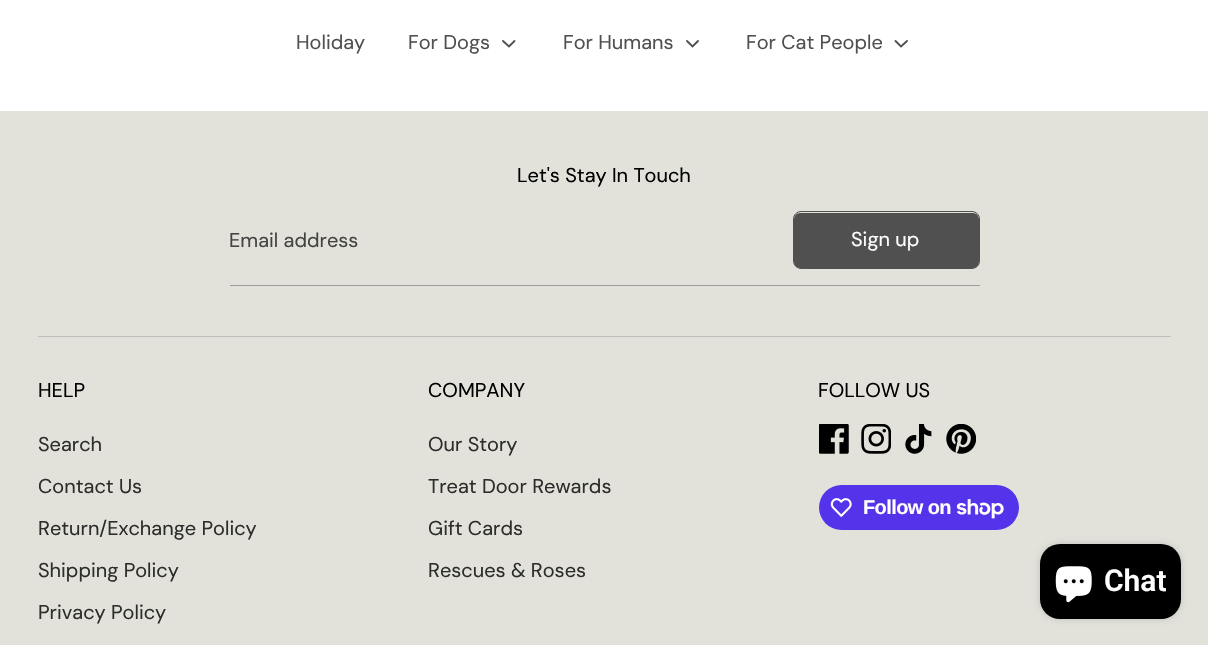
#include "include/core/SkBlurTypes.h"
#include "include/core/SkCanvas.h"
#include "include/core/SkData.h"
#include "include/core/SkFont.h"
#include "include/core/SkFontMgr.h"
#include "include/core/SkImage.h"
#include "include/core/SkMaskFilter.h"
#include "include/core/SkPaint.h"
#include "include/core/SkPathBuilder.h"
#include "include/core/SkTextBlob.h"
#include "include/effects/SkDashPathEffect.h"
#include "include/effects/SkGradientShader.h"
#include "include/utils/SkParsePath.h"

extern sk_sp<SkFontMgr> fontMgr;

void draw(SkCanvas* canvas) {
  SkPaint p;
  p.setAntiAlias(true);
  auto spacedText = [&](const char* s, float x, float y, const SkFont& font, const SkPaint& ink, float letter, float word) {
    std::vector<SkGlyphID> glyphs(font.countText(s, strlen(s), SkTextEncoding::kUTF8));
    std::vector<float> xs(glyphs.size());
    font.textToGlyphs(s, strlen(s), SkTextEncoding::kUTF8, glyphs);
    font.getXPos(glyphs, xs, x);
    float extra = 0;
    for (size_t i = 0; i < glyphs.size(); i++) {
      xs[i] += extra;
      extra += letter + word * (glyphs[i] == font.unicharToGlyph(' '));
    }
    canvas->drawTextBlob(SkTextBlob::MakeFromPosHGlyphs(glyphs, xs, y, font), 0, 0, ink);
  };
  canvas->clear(SK_ColorWHITE);
  p.setStyle(SkPaint::kStroke_Style);
  p.setStrokeWidth(1.9f);
  p.setStrokeCap(SkPaint::kRound_Cap);
  p.setColor(SkColorSetRGB(80, 80, 80));
  canvas->drawPath(SkPathBuilder().moveTo(503, 41).lineTo(509, 46.5f).lineTo(514.5f, 41).detach(), p);
  canvas->drawPath(SkPathBuilder().moveTo(687, 41).lineTo(692.5f, 46.5f).lineTo(698, 41).detach(), p);
  canvas->drawPath(SkPathBuilder().moveTo(895.5f, 41).lineTo(901, 46.5f).lineTo(907, 41).detach(), p);
  p.setStyle(SkPaint::kFill_Style);
  p.setColor(SkColorSetRGB(226, 226, 219));
  canvas->drawRect(SkRect::MakeLTRB(0, 111, 1208, 645), p);
  p.setColor(SkColorSetRGB(158, 158, 153));
  canvas->drawRect(SkRect::MakeLTRB(230, 285, 980, 286), p);
  p.setStyle(SkPaint::kStroke_Style);
  p.setStrokeWidth(1);
  p.setStrokeCap(SkPaint::kButt_Cap);
  p.setColor(SkColorSetRGB(80, 80, 80));
  canvas->drawRoundRect(SkRect::MakeLTRB(793.5f, 211.5f, 979.5f, 268.5f), 7.5f, 7.5f, p);
  p.setStyle(SkPaint::kFill_Style);
  canvas->drawRoundRect(SkRect::MakeLTRB(794, 213, 979, 268), 6, 6, p);
  p.setColor(SkColorSetRGB(192, 192, 186));
  canvas->drawRect(SkRect::MakeLTRB(38, 336, 1171, 337), p);
  canvas->drawImageRect(SkImages::DeferredFromEncodedData(SkData::MakeFromFileName("images/1.png")), SkRect::MakeLTRB(819, 424, 849, 454), SkSamplingOptions());
  canvas->drawImageRect(SkImages::DeferredFromEncodedData(SkData::MakeFromFileName("images/2.png")), SkRect::MakeLTRB(861, 424, 891, 454), SkSamplingOptions());
  canvas->drawImageRect(SkImages::DeferredFromEncodedData(SkData::MakeFromFileName("images/3.png")), SkRect::MakeLTRB(905, 424, 932, 454), SkSamplingOptions());
  canvas->drawImageRect(SkImages::DeferredFromEncodedData(SkData::MakeFromFileName("images/4.png")), SkRect::MakeLTRB(946, 424, 976, 454), SkSamplingOptions());
  p.setColor(SkColorSetRGB(84, 51, 235));
  canvas->drawRoundRect(SkRect::MakeLTRB(819, 485, 1019, 530), 22.5f, 22.5f, p);
  canvas->drawImageRect(SkImages::DeferredFromEncodedData(SkData::MakeFromFileName("images/5.png")), SkRect::MakeLTRB(830, 498, 852, 517), SkSamplingOptions());
  canvas->drawImageRect(SkImages::DeferredFromEncodedData(SkData::MakeFromFileName("images/6.png")), SkRect::MakeLTRB(956, 499, 1004, 519), SkSamplingOptions());
  p.setColor(SkColorSetARGB(38, 0, 0, 0));
  p.setMaskFilter(SkMaskFilter::MakeBlur(kNormal_SkBlurStyle, 3));
  canvas->drawRoundRect(SkRect::MakeLTRB(1040, 544, 1181, 619), 20, 20, p);
  p.setMaskFilter(nullptr);
  p.setColor(SK_ColorBLACK);
  canvas->drawRoundRect(SkRect::MakeLTRB(1040, 544, 1181, 619), 20, 20, p);
  canvas->drawImageRect(SkImages::DeferredFromEncodedData(SkData::MakeFromFileName("images/7.png")), SkRect::MakeLTRB(1055, 566, 1092, 603), SkSamplingOptions());
  SkFont font1(fontMgr->matchFamilyStyle("DM Sans", SkFontStyle::Normal()), 20);
  font1.setSubpixel(true);
  p.setColor(SkColorSetRGB(80, 80, 80));
  canvas->drawString("Holiday", 296, 49, font1, p);
  canvas->drawString("For Dogs", 408, 49, font1, p);
  canvas->drawString("For Humans", 563, 49, font1, p);
  canvas->drawString("For Cat People", 746, 49, font1, p);
  p.setColor(SK_ColorBLACK);
  canvas->drawString("Let's Stay In Touch", 517, 182, font1, p);
  p.setColor(SkColorSetRGB(68, 68, 66));
  canvas->drawString("Email address", 229, 247, font1, p);
  p.setColor(SK_ColorWHITE);
  canvas->drawString("Sign up", 851, 246, font1, p);
  p.setColor(SK_ColorBLACK);
  canvas->drawString("HELP", 38, 397, font1, p);
  p.setColor(SkColorSetRGB(45, 45, 44));
  canvas->drawString("Search", 38, 451, font1, p);
  canvas->drawString("Contact Us", 38, 493, font1, p);
  canvas->drawString("Return/Exchange Policy", 38, 535, font1, p);
  canvas->drawString("Shipping Policy", 38, 577, font1, p);
  canvas->drawString("Privacy Policy", 38, 619, font1, p);
  p.setColor(SK_ColorBLACK);
  canvas->drawString("COMPANY", 428, 397, font1, p);
  p.setColor(SkColorSetRGB(45, 45, 44));
  canvas->drawString("Our Story", 428, 451, font1, p);
  canvas->drawString("Treat Door Rewards", 428, 493, font1, p);
  canvas->drawString("Gift Cards", 428, 535, font1, p);
  canvas->drawString("Rescues & Roses", 428, 577, font1, p);
  p.setColor(SK_ColorBLACK);
  canvas->drawString("FOLLOW US", 818, 397, font1, p);
  SkFont font2(fontMgr->matchFamilyStyle("Liberation Sans", SkFontStyle::Bold()), 20);
  font2.setSubpixel(true);
  p.setColor(SK_ColorWHITE);
  spacedText("Follow on", 863, 514, font2, p, -0.6f, 0);
  SkFont font3(fontMgr->matchFamilyStyle("Roboto", SkFontStyle(600, SkFontStyle::kNormal_Width, SkFontStyle::kUpright_Slant)), 30);
  font3.setSubpixel(true);
  canvas->drawString("Chat", 1104, 591, font3, p);
}
